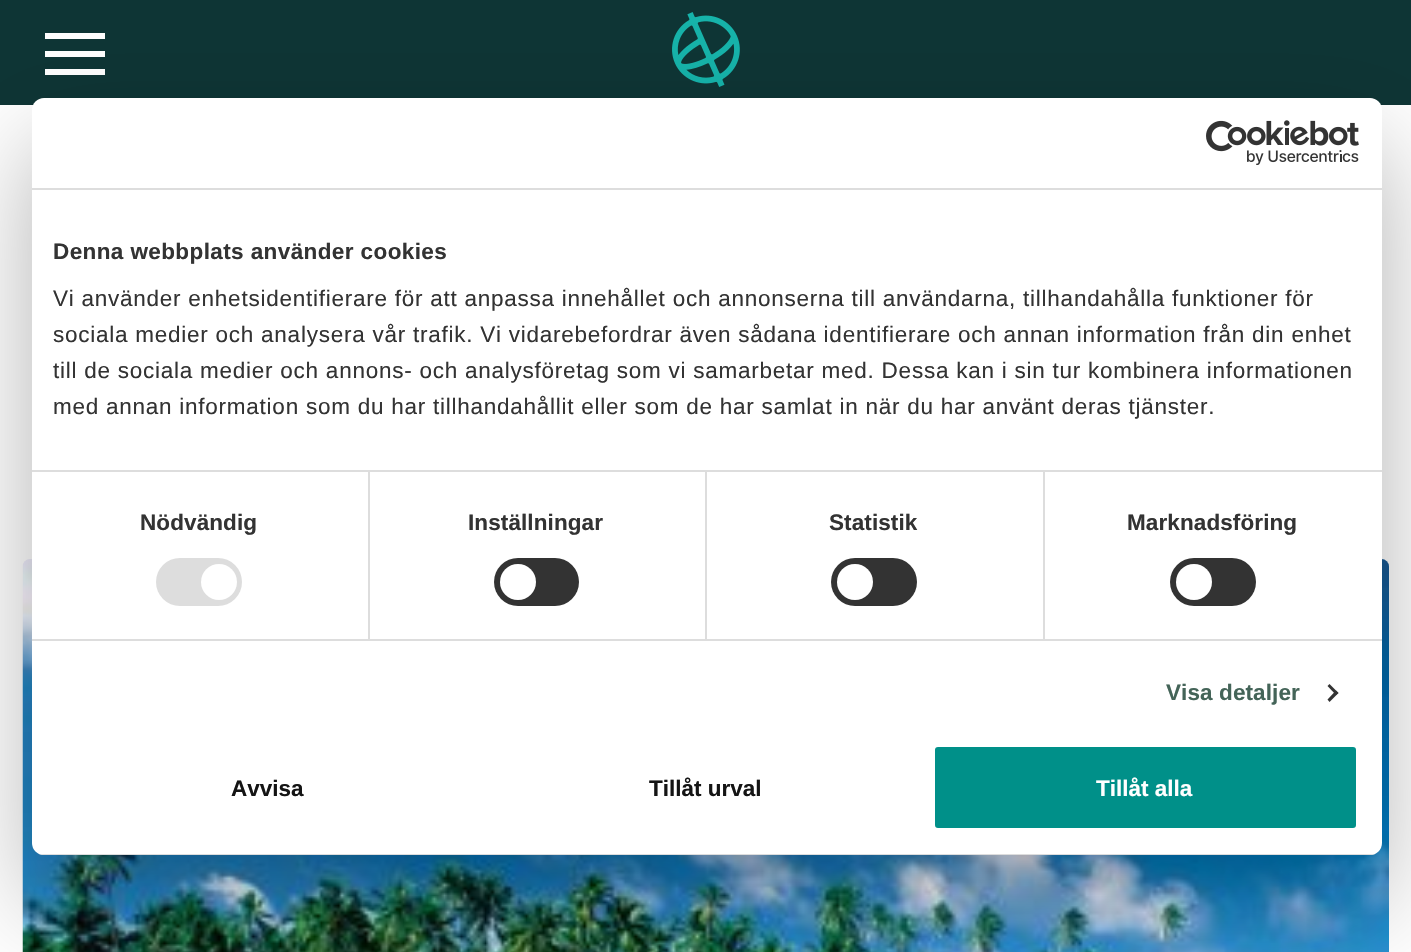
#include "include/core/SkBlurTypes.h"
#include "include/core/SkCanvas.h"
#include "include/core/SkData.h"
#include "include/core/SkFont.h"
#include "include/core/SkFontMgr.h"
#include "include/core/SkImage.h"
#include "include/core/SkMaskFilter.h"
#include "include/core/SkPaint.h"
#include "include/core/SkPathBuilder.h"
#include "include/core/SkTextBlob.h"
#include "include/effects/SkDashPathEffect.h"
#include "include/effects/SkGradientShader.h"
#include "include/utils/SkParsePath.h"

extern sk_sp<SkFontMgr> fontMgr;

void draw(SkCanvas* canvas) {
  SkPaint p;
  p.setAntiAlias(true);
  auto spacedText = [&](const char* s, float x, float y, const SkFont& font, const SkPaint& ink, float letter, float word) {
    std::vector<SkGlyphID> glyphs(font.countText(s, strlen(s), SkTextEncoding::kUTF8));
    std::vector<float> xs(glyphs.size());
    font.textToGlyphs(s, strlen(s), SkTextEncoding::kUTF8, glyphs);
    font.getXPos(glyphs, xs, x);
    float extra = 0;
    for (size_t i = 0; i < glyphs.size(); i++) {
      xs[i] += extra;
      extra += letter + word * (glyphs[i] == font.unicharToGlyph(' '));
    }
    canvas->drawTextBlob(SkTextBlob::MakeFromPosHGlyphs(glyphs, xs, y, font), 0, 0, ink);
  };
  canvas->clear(SK_ColorWHITE);
  p.setColor(SkColorSetRGB(14, 53, 53));
  canvas->drawRect(SkRect::MakeLTRB(0, 0, 1411, 105), p);
  p.setColor(SK_ColorWHITE);
  canvas->drawRect(SkRect::MakeLTRB(45, 51, 105, 57), p);
  canvas->drawRect(SkRect::MakeLTRB(45, 33, 105, 39), p);
  canvas->drawRect(SkRect::MakeLTRB(45, 69, 105, 75), p);
  canvas->drawImageRect(SkImages::DeferredFromEncodedData(SkData::MakeFromFileName("images/1.png")), SkRect::MakeLTRB(672, 12, 740, 87), SkSamplingOptions());
  canvas->drawImageRect(SkImages::DeferredFromEncodedData(SkData::MakeFromFileName("images/3.png")), SkRect::MakeLTRB(22, 559, 1389, 952), SkSamplingOptions());
  p.setColor(SkColorSetARGB(77, 0, 0, 0));
  p.setMaskFilter(SkMaskFilter::MakeBlur(kNormal_SkBlurStyle, 51));
  canvas->drawRoundRect(SkRect::MakeLTRB(32, 146, 1382, 903), 12, 12, p);
  p.setMaskFilter(nullptr);
  p.setColor(SK_ColorWHITE);
  canvas->drawRoundRect(SkRect::MakeLTRB(32, 98, 1382, 855), 12, 12, p);
  p.setColor(SkColorSetRGB(221, 221, 221));
  canvas->drawRect(SkRect::MakeLTRB(32, 188, 1382, 190), p);
  canvas->drawImageRect(SkImages::DeferredFromEncodedData(SkData::MakeFromFileName("images/2.png")), SkRect::MakeLTRB(1206, 120, 1359, 165), SkSamplingOptions());
  canvas->drawRect(SkRect::MakeLTRB(368, 471, 370, 639), p);
  canvas->drawRect(SkRect::MakeLTRB(705, 471, 707, 639), p);
  canvas->drawRect(SkRect::MakeLTRB(1043, 471, 1045, 639), p);
  canvas->drawRect(SkRect::MakeLTRB(32, 470, 1382, 472), p);
  canvas->drawRect(SkRect::MakeLTRB(32, 639, 1382, 641), p);
  canvas->drawRoundRect(SkRect::MakeLTRB(156, 558, 242, 606), 24, 24, p);
  p.setColor(SK_ColorWHITE);
  canvas->drawCircle(219, 582, 18, p);
  p.setColor(SkColorSetRGB(51, 51, 51));
  canvas->drawRoundRect(SkRect::MakeLTRB(494, 558, 579, 606), 24, 24, p);
  p.setColor(SK_ColorWHITE);
  canvas->drawCircle(518, 582, 18, p);
  p.setColor(SkColorSetRGB(51, 51, 51));
  canvas->drawRoundRect(SkRect::MakeLTRB(831, 558, 917, 606), 24, 24, p);
  p.setColor(SK_ColorWHITE);
  canvas->drawCircle(855, 582, 18, p);
  p.setColor(SkColorSetRGB(51, 51, 51));
  canvas->drawRoundRect(SkRect::MakeLTRB(1170, 558, 1256, 606), 24, 24, p);
  p.setColor(SK_ColorWHITE);
  canvas->drawCircle(1194, 582, 18, p);
  p.setColor(SkColorSetRGB(51, 51, 51));
  canvas->drawPath(SkPathBuilder().moveTo(1329.5f, 684).lineTo(1338.5f, 693).lineTo(1336, 695).lineTo(1327.5f, 686).close().detach(), p);
  canvas->drawPath(SkPathBuilder().moveTo(1336, 690.5f).lineTo(1338.5f, 693).lineTo(1329.5f, 702).lineTo(1327.5f, 699.5f).close().detach(), p);
  canvas->save();
  canvas->clipPath(SkPathBuilder().moveTo(44, 98).lineTo(1370, 98).cubicTo(1376.5f, 98, 1382, 103.5f, 1382, 110).lineTo(1382, 843).cubicTo(1382, 849.5f, 1376.5f, 855, 1370, 855).lineTo(44, 855).cubicTo(37.5f, 855, 32, 849.5f, 32, 843).lineTo(32, 110).cubicTo(32, 103.5f, 37.5f, 98, 44, 98).close().detach(), true);
  p.setColor(SkColorSetRGB(221, 221, 221));
  canvas->drawRect(SkRect::MakeLTRB(32, 854, 1382, 855), p);
  canvas->restore();
  p.setColor(SkColorSetRGB(0, 144, 137));
  canvas->drawRoundRect(SkRect::MakeLTRB(933.5f, 745.5f, 1357.5f, 829.5f), 4.5f, 4.5f, p);
  p.setStyle(SkPaint::kStroke_Style);
  p.setStrokeWidth(3);
  p.setColor(SK_ColorWHITE);
  canvas->drawRoundRect(SkRect::MakeLTRB(933.5f, 745.5f, 1357.5f, 829.5f), 4.5f, 4.5f, p);
  SkFont font1(fontMgr->matchFamilyStyle("Liberation Sans", SkFontStyle::Bold()), 22.5f);
  font1.setSubpixel(true);
  p.setStyle(SkPaint::kFill_Style);
  p.setColor(SkColorSetRGB(51, 51, 51));
  spacedText("Denna webbplats använder cookies", 53, 259, font1, p, 0.4f, 0);
  SkFont font2(fontMgr->matchFamilyStyle("Liberation Sans", SkFontStyle::Normal()), 22.5f);
  font2.setSubpixel(true);
  spacedText("Vi använder enhetsidentifierare för att anpassa innehållet och annonserna till användarna, tillhandahålla funktioner för", 53, 306, font2, p, 0.75f, 0);
  spacedText("sociala medier och analysera vår trafik. Vi vidarebefordrar även sådana identifierare och annan information från din enhet", 53, 342, font2, p, 0.75f, 0);
  spacedText("till de sociala medier och annons- och analysföretag som vi samarbetar med. Dessa kan i sin tur kombinera informationen", 53, 378, font2, p, 0.75f, 0);
  spacedText("med annan information som du har tillhandahållit eller som de har samlat in när du har använt deras tjänster.", 53, 414, font2, p, 0.75f, 0);
  spacedText("Nödvändig", 140, 530, font1, p, 0.1f, 0);
  spacedText("Inställningar", 468, 530, font1, p, 0.1f, 0);
  spacedText("Statistik", 829, 530, font1, p, 0.1f, 0);
  spacedText("Marknadsföring", 1127, 530, font1, p, 0.1f, 0);
  p.setColor(SkColorSetRGB(68, 100, 88));
  spacedText("Visa detaljer", 1166, 700, font1, p, 0.1f, 0);
  p.setColor(SkColorSetRGB(20, 20, 20));
  canvas->drawString("Avvisa", 231, 796, font1, p);
  canvas->drawString("Tillåt urval", 649, 796, font1, p);
  p.setColor(SK_ColorWHITE);
  canvas->drawString("Tillåt alla", 1096, 796, font1, p);
}
